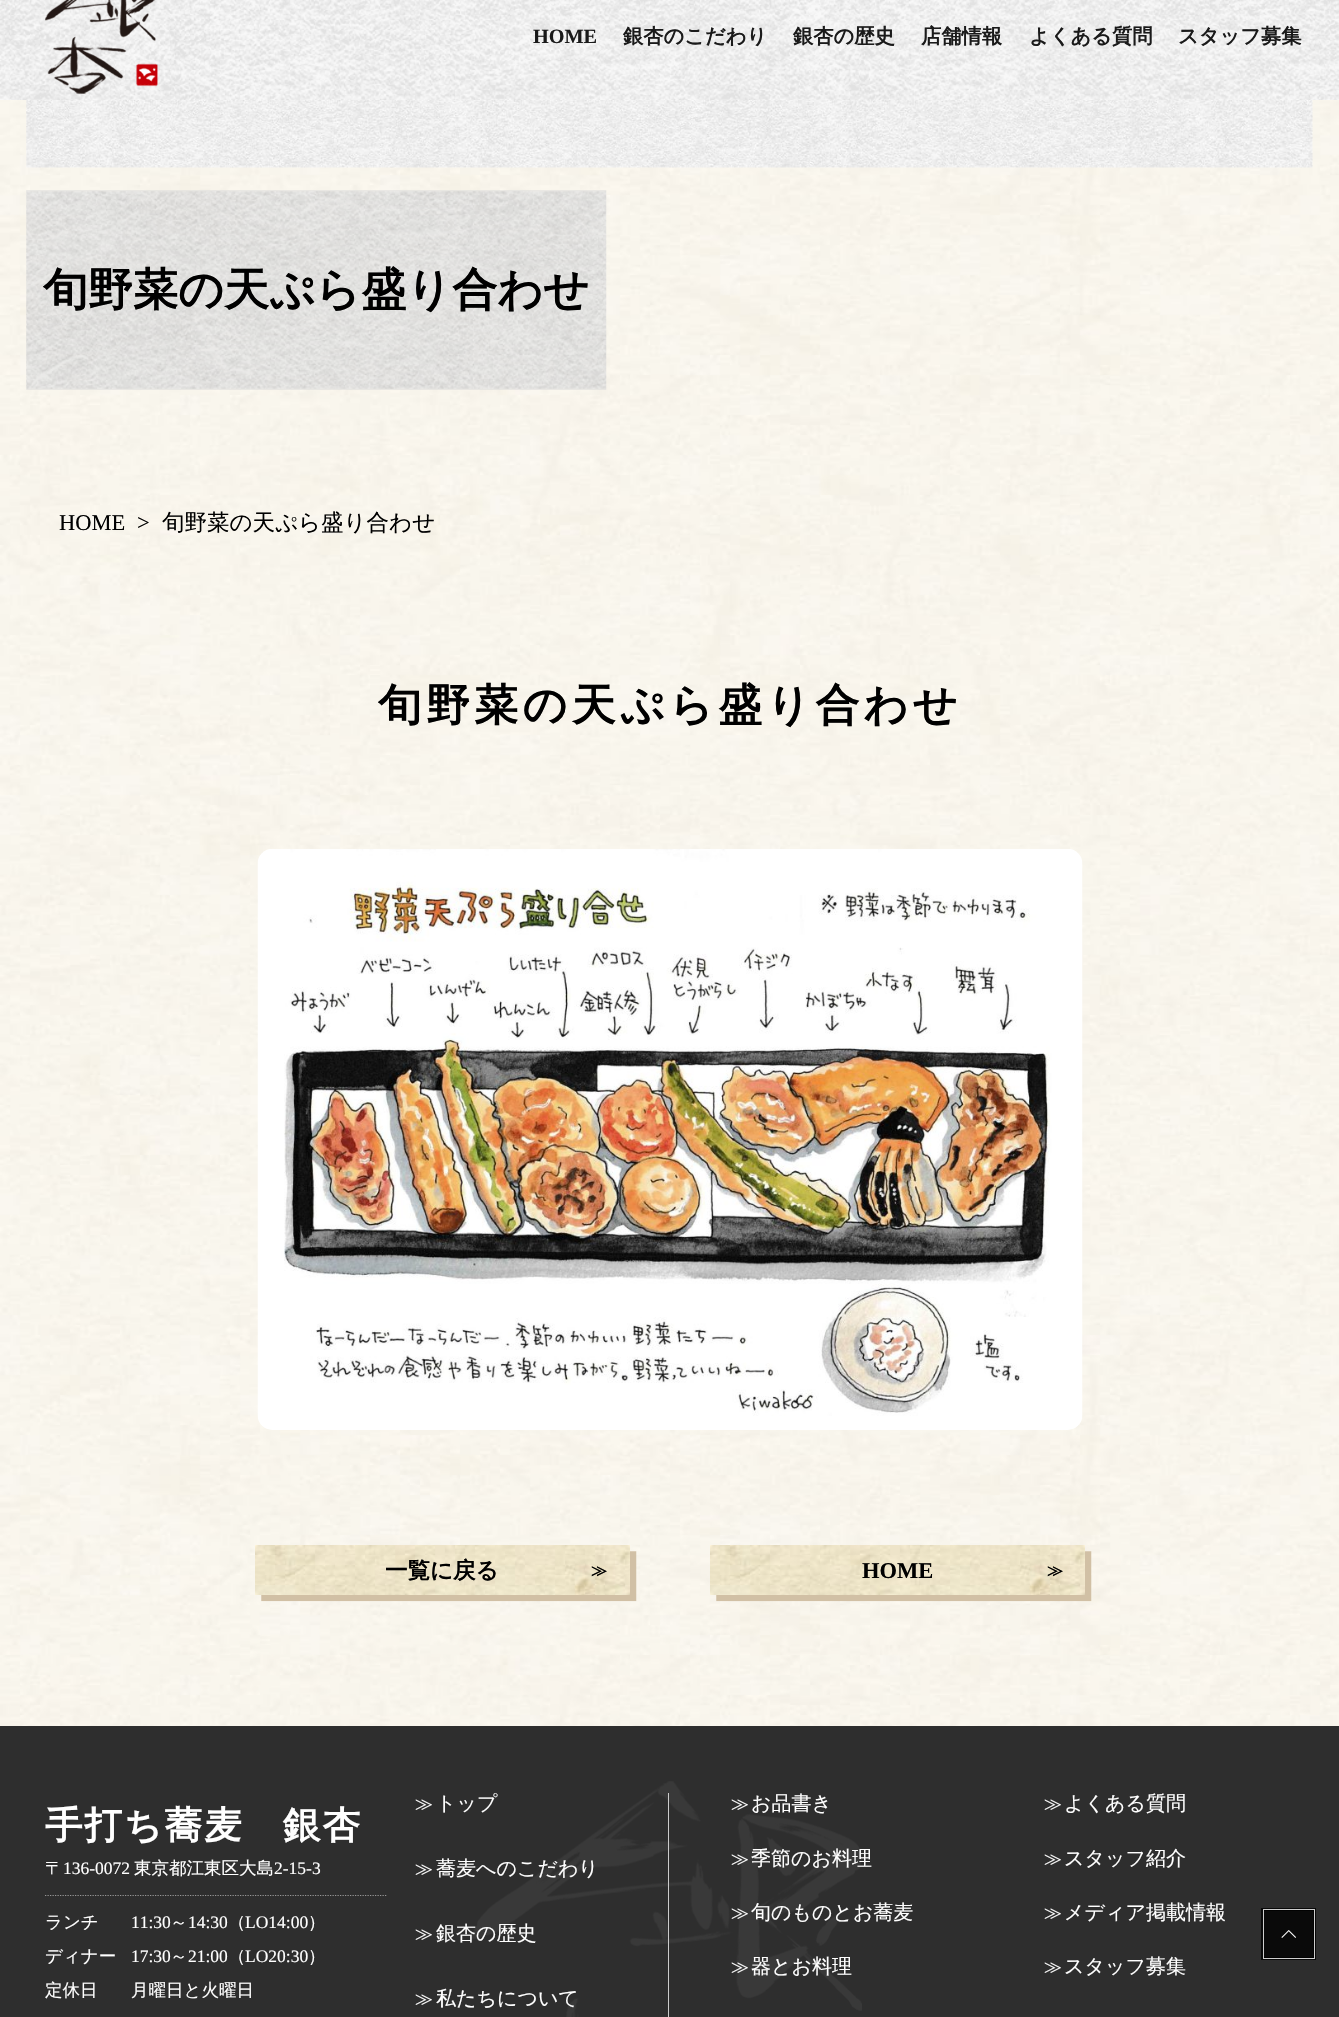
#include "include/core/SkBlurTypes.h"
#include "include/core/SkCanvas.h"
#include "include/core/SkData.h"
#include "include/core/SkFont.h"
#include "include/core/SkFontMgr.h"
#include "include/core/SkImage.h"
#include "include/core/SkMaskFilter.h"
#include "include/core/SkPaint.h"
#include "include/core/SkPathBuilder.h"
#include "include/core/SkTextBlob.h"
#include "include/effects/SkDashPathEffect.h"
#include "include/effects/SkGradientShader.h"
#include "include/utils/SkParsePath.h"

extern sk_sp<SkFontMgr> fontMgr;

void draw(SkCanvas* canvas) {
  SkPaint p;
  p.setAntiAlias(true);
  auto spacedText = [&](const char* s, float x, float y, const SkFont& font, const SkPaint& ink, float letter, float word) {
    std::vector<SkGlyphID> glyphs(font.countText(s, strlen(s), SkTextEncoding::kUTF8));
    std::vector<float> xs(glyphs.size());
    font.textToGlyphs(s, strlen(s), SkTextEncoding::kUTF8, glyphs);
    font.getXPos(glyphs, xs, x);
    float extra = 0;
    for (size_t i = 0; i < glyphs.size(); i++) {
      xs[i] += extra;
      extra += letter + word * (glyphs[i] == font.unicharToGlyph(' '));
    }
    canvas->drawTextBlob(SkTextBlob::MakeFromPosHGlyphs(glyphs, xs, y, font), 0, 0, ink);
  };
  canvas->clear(SK_ColorWHITE);
  canvas->drawImageRect(SkImages::DeferredFromEncodedData(SkData::MakeFromFileName("images/1.png")), SkRect::MakeLTRB(0, 100, 1339, 1726), SkSamplingOptions());
  canvas->drawImageRect(SkImages::DeferredFromEncodedData(SkData::MakeFromFileName("images/2.png")), SkRect::MakeLTRB(0, 0, 1339, 100), SkSamplingOptions());
  canvas->drawImageRect(SkImages::DeferredFromEncodedData(SkData::MakeFromFileName("images/3.png")), SkRect::MakeLTRB(45, 0, 158, 94), SkSamplingOptions());
  canvas->drawImageRect(SkImages::DeferredFromEncodedData(SkData::MakeFromFileName("images/4.png")), SkRect::MakeLTRB(26, 100, 1313, 168), SkSamplingOptions());
  canvas->drawImageRect(SkImages::DeferredFromEncodedData(SkData::MakeFromFileName("images/5.png")), SkRect::MakeLTRB(26, 190, 607, 390), SkSamplingOptions());
  canvas->drawImageRect(SkImages::DeferredFromEncodedData(SkData::MakeFromFileName("images/6.png")), SkRect::MakeLTRB(257, 849, 1083, 1430), SkSamplingOptions());
  canvas->drawImageRect(SkImages::DeferredFromEncodedData(SkData::MakeFromFileName("images/7.png")), SkRect::MakeLTRB(255, 1545, 637, 1602), SkSamplingOptions());
  canvas->drawImageRect(SkImages::DeferredFromEncodedData(SkData::MakeFromFileName("images/8.png")), SkRect::MakeLTRB(710, 1545, 1092, 1602), SkSamplingOptions());
  p.setColor(SkColorSetRGB(46, 46, 46));
  canvas->drawRect(SkRect::MakeLTRB(0, 1726, 1339, 2017), p);
  canvas->drawImageRect(SkImages::DeferredFromEncodedData(SkData::MakeFromFileName("images/9.png")), SkRect::MakeLTRB(471, 1781, 862, 2017), SkSamplingOptions());
  p.setColor(SkColorSetRGB(204, 204, 204));
  canvas->drawRect(SkRect::MakeLTRB(668, 1793, 669, 2017), p);
  p.setStyle(SkPaint::kStroke_Style);
  p.setStrokeWidth(1.2f);
  p.setColor(SkColorSetRGB(151, 151, 151));
  p.setPathEffect(SkDashPathEffect::Make({{1.25f, 1.25f}}, 0));
  canvas->drawPath(SkPathBuilder().moveTo(45, 1895.5f).lineTo(387.5f, 1895.5f).detach(), p);
  p.setPathEffect(nullptr);
  p.setStrokeWidth(3);
  p.setColor(SkColorSetRGB(9, 9, 9));
  canvas->drawRect(SkRect::MakeLTRB(1262.5f, 1909.5f, 1314.5f, 1958.5f), p);
  p.setStrokeWidth(1);
  p.setColor(SkColorSetRGB(206, 206, 206));
  canvas->drawRect(SkRect::MakeLTRB(1263.5f, 1909.5f, 1314.5f, 1958.5f), p);
  p.setStyle(SkPaint::kFill_Style);
  p.setColor(SkColorSetARGB(204, 0, 0, 0));
  canvas->drawRect(SkRect::MakeLTRB(1264, 1910, 1314, 1958), p);
  canvas->drawImageRect(SkImages::DeferredFromEncodedData(SkData::MakeFromFileName("images/10.png")), SkRect::MakeLTRB(1281, 1930, 1296, 1938), SkSamplingOptions());
  SkFont font1(fontMgr->matchFamilyStyle("Liberation Serif", SkFontStyle::Bold()), 20.25f);
  font1.setSubpixel(true);
  p.setColor(SkColorSetRGB(26, 26, 26));
  canvas->drawString("HOME", 533, 43, font1, p);
  SkFont font2(fontMgr->matchFamilyStyle("WenQuanYi Zen Hei", SkFontStyle::Bold()), 20.25f);
  font2.setSubpixel(true);
  canvas->drawString("銀杏のこだわり", 623, 43, font2, p);
  canvas->drawString("銀杏の歴史", 793, 43, font2, p);
  canvas->drawString("店舗情報", 921, 43, font2, p);
  canvas->drawString("よくある質問", 1029, 43, font2, p);
  canvas->drawString("スタッフ募集", 1178, 43, font2, p);
  SkFont font3(fontMgr->matchFamilyStyle("WenQuanYi Zen Hei", SkFontStyle::Bold()), 45);
  font3.setSubpixel(true);
  p.setColor(SK_ColorBLACK);
  canvas->drawString("旬野菜の天ぷら盛り合わせ", 43, 305, font3, p);
  SkFont font4(fontMgr->matchFamilyStyle("Liberation Serif", SkFontStyle::Normal()), 22.5f);
  font4.setSubpixel(true);
  canvas->drawString("HOME", 59, 530, font4, p);
  canvas->drawString(">", 137, 530, font4, p);
  SkFont font5(fontMgr->matchFamilyStyle("WenQuanYi Zen Hei", SkFontStyle(500, SkFontStyle::kNormal_Width, SkFontStyle::kUpright_Slant)), 22.5f);
  font5.setSubpixel(true);
  canvas->drawString("旬野菜の天ぷら盛り合わせ", 162, 530, font5, p);
  SkFont font6(fontMgr->matchFamilyStyle("WenQuanYi Zen Hei", SkFontStyle::Bold()), 43.75f);
  font6.setSubpixel(true);
  spacedText("旬野菜の天ぷら盛り合わせ", 378, 720, font6, p, 4.4f, 0);
  SkFont font7(fontMgr->matchFamilyStyle("WenQuanYi Zen Hei", SkFontStyle::Bold()), 22.5f);
  font7.setSubpixel(true);
  canvas->drawString("一覧に戻る", 385, 1578, font7, p);
  SkFont font8(fontMgr->matchFamilyStyle("WenQuanYi Zen Hei", SkFontStyle::Bold()), 16);
  font8.setSubpixel(true);
  canvas->drawString("≫", 591, 1576, font8, p);
  SkFont font9(fontMgr->matchFamilyStyle("Liberation Serif", SkFontStyle::Bold()), 22.5f);
  font9.setSubpixel(true);
  canvas->drawString("HOME", 862, 1578, font9, p);
  canvas->drawString("≫", 1047, 1576, font8, p);
  SkFont font10(fontMgr->matchFamilyStyle("WenQuanYi Zen Hei", SkFontStyle::Bold()), 37.5f);
  font10.setSubpixel(true);
  p.setColor(SK_ColorWHITE);
  spacedText("手打ち蕎麦　銀杏", 45, 1838, font10, p, 2, 0);
  SkFont font11(fontMgr->matchFamilyStyle("WenQuanYi Zen Hei", SkFontStyle(500, SkFontStyle::kNormal_Width, SkFontStyle::kUpright_Slant)), 17.5f);
  font11.setSubpixel(true);
  canvas->drawString("〒", 45, 1874, font11, p);
  SkFont font12(fontMgr->matchFamilyStyle("Liberation Serif", SkFontStyle::Normal()), 17.5f);
  font12.setSubpixel(true);
  canvas->drawString("136-0072", 63, 1874, font12, p);
  canvas->drawString("東京都江東区大島", 134, 1874, font11, p);
  canvas->drawString("2-15-3", 274, 1874, font12, p);
  canvas->drawString("ランチ", 45, 1928, font11, p);
  canvas->drawString("11:30", 131, 1928, font12, p);
  canvas->drawString("～", 170, 1928, font11, p);
  canvas->drawString("14:30", 188, 1928, font12, p);
  canvas->drawString("（", 228, 1928, font11, p);
  canvas->drawString("LO14:00", 245, 1928, font12, p);
  canvas->drawString("）", 308, 1928, font11, p);
  canvas->drawString("ディナー", 45, 1962, font11, p);
  canvas->drawString("17:30", 131, 1962, font12, p);
  canvas->drawString("～", 170, 1962, font11, p);
  canvas->drawString("21:00", 188, 1962, font12, p);
  canvas->drawString("（", 228, 1962, font11, p);
  canvas->drawString("LO20:30", 245, 1962, font12, p);
  canvas->drawString("）", 308, 1962, font11, p);
  canvas->drawString("定休日", 45, 1996, font11, p);
  canvas->drawString("月曜日と火曜日", 131, 1996, font11, p);
  SkFont font13(fontMgr->matchFamilyStyle("WenQuanYi Zen Hei", SkFontStyle(500, SkFontStyle::kNormal_Width, SkFontStyle::kUpright_Slant)), 18);
  font13.setSubpixel(true);
  canvas->drawString("≫", 415, 1810, font13, p);
  SkFont font14(fontMgr->matchFamilyStyle("WenQuanYi Zen Hei", SkFontStyle(500, SkFontStyle::kNormal_Width, SkFontStyle::kUpright_Slant)), 20);
  font14.setSubpixel(true);
  canvas->drawString("トップ", 436, 1810, font14, p);
  canvas->drawString("≫", 415, 1875, font13, p);
  canvas->drawString("蕎麦へのこだわり", 436, 1875, font14, p);
  canvas->drawString("≫", 415, 1940, font13, p);
  canvas->drawString("銀杏の歴史", 436, 1940, font14, p);
  canvas->drawString("≫", 415, 2005, font13, p);
  canvas->drawString("私たちについて", 436, 2005, font14, p);
  canvas->drawString("≫", 731, 1810, font13, p);
  canvas->drawString("お品書き", 751, 1810, font14, p);
  canvas->drawString("≫", 731, 1865, font13, p);
  canvas->drawString("季節のお料理", 751, 1865, font14, p);
  canvas->drawString("≫", 731, 1919, font13, p);
  canvas->drawString("旬のものとお蕎麦", 751, 1919, font14, p);
  canvas->drawString("≫", 731, 1973, font13, p);
  canvas->drawString("器とお料理", 751, 1973, font14, p);
  canvas->drawString("≫", 1044, 1810, font13, p);
  canvas->drawString("よくある質問", 1064, 1810, font14, p);
  canvas->drawString("≫", 1044, 1865, font13, p);
  canvas->drawString("スタッフ紹介", 1064, 1865, font14, p);
  canvas->drawString("≫", 1044, 1919, font13, p);
  canvas->drawString("メディア掲載情報", 1064, 1919, font14, p);
  canvas->drawString("≫", 1044, 1973, font13, p);
  canvas->drawString("スタッフ募集", 1064, 1973, font14, p);
}
